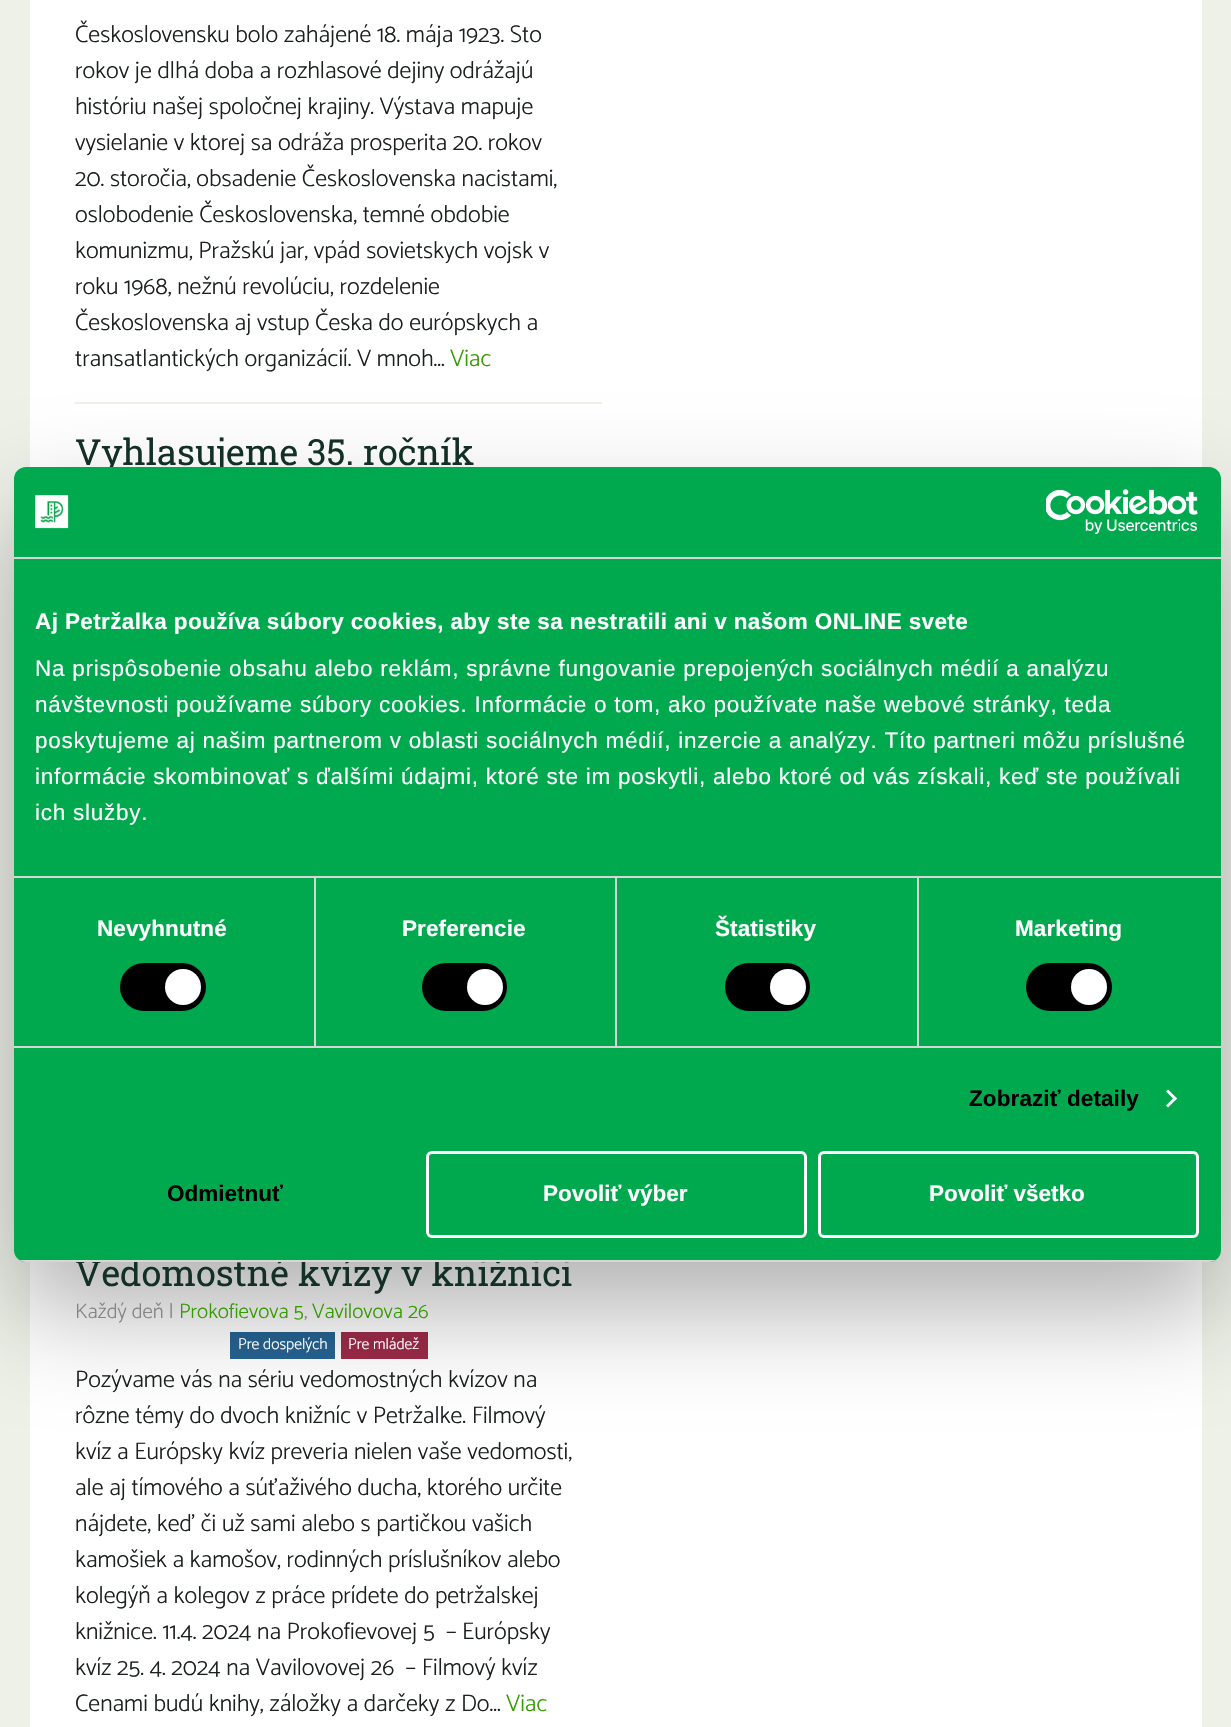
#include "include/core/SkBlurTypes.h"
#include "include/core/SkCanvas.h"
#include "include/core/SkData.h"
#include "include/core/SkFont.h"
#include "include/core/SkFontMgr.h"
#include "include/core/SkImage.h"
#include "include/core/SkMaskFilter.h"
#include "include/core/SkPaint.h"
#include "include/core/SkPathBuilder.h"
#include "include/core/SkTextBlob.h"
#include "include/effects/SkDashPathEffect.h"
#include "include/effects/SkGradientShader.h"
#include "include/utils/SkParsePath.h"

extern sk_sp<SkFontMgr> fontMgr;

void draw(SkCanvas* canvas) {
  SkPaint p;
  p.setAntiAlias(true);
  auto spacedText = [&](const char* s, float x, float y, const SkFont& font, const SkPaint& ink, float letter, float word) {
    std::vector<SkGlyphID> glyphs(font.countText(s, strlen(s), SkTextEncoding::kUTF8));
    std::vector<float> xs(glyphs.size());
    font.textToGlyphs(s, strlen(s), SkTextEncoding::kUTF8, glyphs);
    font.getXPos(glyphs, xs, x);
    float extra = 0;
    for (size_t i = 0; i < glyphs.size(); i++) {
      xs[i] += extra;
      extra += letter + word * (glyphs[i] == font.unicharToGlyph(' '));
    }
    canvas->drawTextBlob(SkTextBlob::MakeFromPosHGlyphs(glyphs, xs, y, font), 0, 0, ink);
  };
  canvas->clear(SkColorSetRGB(237, 241, 232));
  p.setColor(SK_ColorWHITE);
  canvas->drawRect(SkRect::MakeLTRB(30, 0, 1202, 1727), p);
  p.setColor(SkColorSetRGB(237, 241, 232));
  canvas->drawRect(SkRect::MakeLTRB(75, 402, 602, 404), p);
  p.setColor(SkColorSetRGB(38, 99, 146));
  canvas->drawRect(SkRect::MakeLTRB(230, 1332, 335, 1359), p);
  p.setColor(SkColorSetRGB(156, 43, 73));
  canvas->drawRect(SkRect::MakeLTRB(341, 1332, 428, 1359), p);
  p.setColor(SkColorSetARGB(77, 0, 0, 0));
  p.setMaskFilter(SkMaskFilter::MakeBlur(kNormal_SkBlurStyle, 51));
  canvas->drawRoundRect(SkRect::MakeLTRB(14, 515, 1221, 1310), 12, 12, p);
  p.setMaskFilter(nullptr);
  SkFont font1(fontMgr->matchFamilyStyle("Catamaran", SkFontStyle(300, SkFontStyle::kNormal_Width, SkFontStyle::kUpright_Slant)), 24);
  font1.setSubpixel(true);
  p.setColor(SkColorSetRGB(27, 31, 31));
  canvas->drawString("Československu bolo zahájené 18. mája 1923. Sto", 75, 42, font1, p);
  canvas->drawString("rokov je dlhá doba a rozhlasové dejiny odrážajú", 75, 78, font1, p);
  canvas->drawString("históriu našej spoločnej krajiny. Výstava mapuje", 75, 114, font1, p);
  canvas->drawString("vysielanie v ktorej sa odráža prosperita 20. rokov", 75, 150, font1, p);
  canvas->drawString("20. storočia, obsadenie Československa nacistami,", 75, 186, font1, p);
  canvas->drawString("oslobodenie Československa, temné obdobie", 75, 222, font1, p);
  canvas->drawString("komunizmu, Pražskú jar, vpád sovietskych vojsk v", 75, 258, font1, p);
  canvas->drawString("roku 1968, nežnú revolúciu, rozdelenie", 75, 294, font1, p);
  canvas->drawString("Československa aj vstup Česka do európskych a", 75, 330, font1, p);
  canvas->drawString("transatlantických organizácií. V mnoh...", 75, 366, font1, p);
  p.setColor(SkColorSetRGB(52, 155, 0));
  canvas->drawString("Viac", 450, 366, font1, p);
  SkFont font2(fontMgr->matchFamilyStyle("Roboto Slab", SkFontStyle::Normal()), 36);
  font2.setSubpixel(true);
  p.setColor(SkColorSetRGB(19, 48, 39));
  canvas->drawString("Vyhlasujeme 35. ročník", 75, 465, font2, p);
  canvas->drawString("Vedomostné kvízy v knižnici", 75, 1286, font2, p);
  SkFont font3(fontMgr->matchFamilyStyle("Catamaran", SkFontStyle(300, SkFontStyle::kNormal_Width, SkFontStyle::kUpright_Slant)), 21);
  font3.setSubpixel(true);
  p.setColor(SkColorSetRGB(131, 134, 134));
  canvas->drawString("Každý deň |", 75, 1318, font3, p);
  p.setColor(SkColorSetRGB(52, 155, 0));
  canvas->drawString("Prokofievova 5", 179, 1318, font3, p);
  p.setColor(SkColorSetRGB(131, 134, 134));
  canvas->drawString(",", 304, 1318, font3, p);
  p.setColor(SkColorSetRGB(52, 155, 0));
  canvas->drawString("Vavilovova 26", 312, 1318, font3, p);
  SkFont font4(fontMgr->matchFamilyStyle("Catamaran", SkFontStyle(300, SkFontStyle::kNormal_Width, SkFontStyle::kUpright_Slant)), 15.75f);
  font4.setSubpixel(true);
  p.setColor(SK_ColorWHITE);
  canvas->drawString("Pre dospelých", 238, 1349, font4, p);
  canvas->drawString("Pre mládež", 348, 1349, font4, p);
  p.setColor(SkColorSetRGB(27, 31, 31));
  canvas->drawString("Pozývame vás na sériu vedomostných kvízov na", 75, 1387, font1, p);
  canvas->drawString("rôzne témy do dvoch knižníc v Petržalke. Filmový", 75, 1423, font1, p);
  canvas->drawString("kvíz a Európsky kvíz preveria nielen vaše vedomosti,", 75, 1459, font1, p);
  canvas->drawString("ale aj tímového a súťaživého ducha, ktorého určite", 75, 1495, font1, p);
  canvas->drawString("nájdete, keď či už sami alebo s partičkou vašich", 75, 1531, font1, p);
  canvas->drawString("kamošiek a kamošov, rodinných príslušníkov alebo", 75, 1567, font1, p);
  canvas->drawString("kolegýň a kolegov z práce prídete do petržalskej", 75, 1603, font1, p);
  canvas->drawString("knižnice. 11.4. 2024 na Prokofievovej 5  – Európsky", 75, 1639, font1, p);
  canvas->drawString("kvíz 25. 4. 2024 na Vavilovovej 26  – Filmový kvíz", 75, 1675, font1, p);
  canvas->drawString("Cenami budú knihy, záložky a darčeky z Do...", 75, 1711, font1, p);
  p.setColor(SkColorSetRGB(52, 155, 0));
  canvas->drawString("Viac", 506, 1711, font1, p);
  p.setColor(SkColorSetRGB(0, 168, 78));
  canvas->drawRoundRect(SkRect::MakeLTRB(14, 467, 1221, 1262), 12, 12, p);
  p.setColor(SkColorSetRGB(214, 214, 214));
  canvas->drawRect(SkRect::MakeLTRB(14, 557, 1221, 559), p);
  canvas->drawImageRect(SkImages::DeferredFromEncodedData(SkData::MakeFromFileName("images/1.png")), SkRect::MakeLTRB(35, 495, 69, 529), SkSamplingOptions());
  canvas->drawImageRect(SkImages::DeferredFromEncodedData(SkData::MakeFromFileName("images/2.png")), SkRect::MakeLTRB(1046, 489, 1198, 534), SkSamplingOptions());
  canvas->drawRect(SkRect::MakeLTRB(14, 876, 1221, 878), p);
  SkFont font5(fontMgr->matchFamilyStyle("Liberation Sans", SkFontStyle::Bold()), 22.5f);
  font5.setSubpixel(true);
  p.setColor(SK_ColorWHITE);
  spacedText("Aj Petržalka používa súbory cookies, aby ste sa nestratili ani v našom ONLINE svete", 35, 629, font5, p, 0.38f, 0);
  SkFont font6(fontMgr->matchFamilyStyle("Liberation Sans", SkFontStyle::Normal()), 22.5f);
  font6.setSubpixel(true);
  spacedText("Na prispôsobenie obsahu alebo reklám, správne fungovanie prepojených sociálnych médií a analýzu", 35, 676, font6, p, 0.75f, 0);
  spacedText("návštevnosti používame súbory cookies. Informácie o tom, ako používate naše webové stránky, teda", 35, 712, font6, p, 0.75f, 0);
  spacedText("poskytujeme aj našim partnerom v oblasti sociálnych médií, inzercie a analýzy. Títo partneri môžu príslušné", 35, 748, font6, p, 0.75f, 0);
  spacedText("informácie skombinovať s ďalšími údajmi, ktoré ste im poskytli, alebo ktoré od vás získali, keď ste používali", 35, 784, font6, p, 0.75f, 0);
  spacedText("ich služby.", 35, 820, font6, p, 0.75f, 0);
  p.setColor(SkColorSetRGB(214, 214, 214));
  canvas->drawRect(SkRect::MakeLTRB(14, 1046, 1221, 1048), p);
  canvas->drawRect(SkRect::MakeLTRB(314, 878, 316, 1046), p);
  p.setColor(SK_ColorWHITE);
  spacedText("Nevyhnutné", 97, 936, font5, p, 0.1f, 0);
  p.setColor(SK_ColorBLACK);
  canvas->drawRoundRect(SkRect::MakeLTRB(120, 963, 206, 1011), 24, 24, p);
  p.setColor(SK_ColorWHITE);
  canvas->drawCircle(183, 987, 18, p);
  p.setColor(SkColorSetRGB(214, 214, 214));
  canvas->drawRect(SkRect::MakeLTRB(615, 878, 617, 1046), p);
  p.setColor(SK_ColorWHITE);
  spacedText("Preferencie", 402, 936, font5, p, 0.1f, 0);
  p.setColor(SK_ColorBLACK);
  canvas->drawRoundRect(SkRect::MakeLTRB(422, 963, 507, 1011), 24, 24, p);
  p.setColor(SK_ColorWHITE);
  canvas->drawCircle(485, 987, 18, p);
  p.setColor(SkColorSetRGB(214, 214, 214));
  canvas->drawRect(SkRect::MakeLTRB(917, 878, 919, 1046), p);
  p.setColor(SK_ColorWHITE);
  spacedText("Štatistiky", 715, 936, font5, p, 0.1f, 0);
  p.setColor(SK_ColorBLACK);
  canvas->drawRoundRect(SkRect::MakeLTRB(725, 963, 810, 1011), 24, 24, p);
  p.setColor(SK_ColorWHITE);
  canvas->drawCircle(788, 987, 18, p);
  spacedText("Marketing", 1015, 936, font5, p, 0.1f, 0);
  p.setColor(SK_ColorBLACK);
  canvas->drawRoundRect(SkRect::MakeLTRB(1026, 963, 1112, 1011), 24, 24, p);
  p.setColor(SK_ColorWHITE);
  canvas->drawCircle(1089, 987, 18, p);
  p.setColor(SK_ColorBLACK);
  spacedText("Zobraziť detaily", 969, 1106, font5, p, 0.1f, 0);
  p.setColor(SK_ColorWHITE);
  canvas->drawPath(SkPathBuilder().moveTo(1168, 1089.5f).lineTo(1177, 1098.5f).lineTo(1175, 1100.5f).lineTo(1166, 1091.5f).close().detach(), p);
  canvas->drawPath(SkPathBuilder().moveTo(1175, 1096.5f).lineTo(1177, 1098.5f).lineTo(1168, 1107.5f).lineTo(1166, 1105.5f).close().detach(), p);
  canvas->save();
  canvas->clipPath(SkPathBuilder().moveTo(26, 467).lineTo(1209, 467).cubicTo(1215.5f, 467, 1221, 472.5f, 1221, 479).lineTo(1221, 1250).cubicTo(1221, 1256.5f, 1215.5f, 1262, 1209, 1262).lineTo(26, 1262).cubicTo(19.5f, 1262, 14, 1256.5f, 14, 1250).lineTo(14, 479).cubicTo(14, 472.5f, 19.5f, 467, 26, 467).close().detach(), true);
  p.setColor(SkColorSetRGB(214, 214, 214));
  canvas->drawRect(SkRect::MakeLTRB(14, 1260, 1221, 1262), p);
  canvas->restore();
  p.setColor(SK_ColorBLACK);
  canvas->drawString("Odmietnuť", 167, 1201, font5, p);
  p.setStyle(SkPaint::kStroke_Style);
  p.setStrokeWidth(3);
  p.setColor(SK_ColorWHITE);
  canvas->drawRoundRect(SkRect::MakeLTRB(427.5f, 1152.5f, 805.5f, 1236.5f), 4.5f, 4.5f, p);
  p.setStyle(SkPaint::kFill_Style);
  canvas->drawString("Povoliť výber", 543, 1201, font5, p);
  p.setStyle(SkPaint::kStroke_Style);
  canvas->drawRoundRect(SkRect::MakeLTRB(819.5f, 1152.5f, 1197.5f, 1236.5f), 4.5f, 4.5f, p);
  p.setStyle(SkPaint::kFill_Style);
  canvas->drawString("Povoliť všetko", 929, 1201, font5, p);
}
